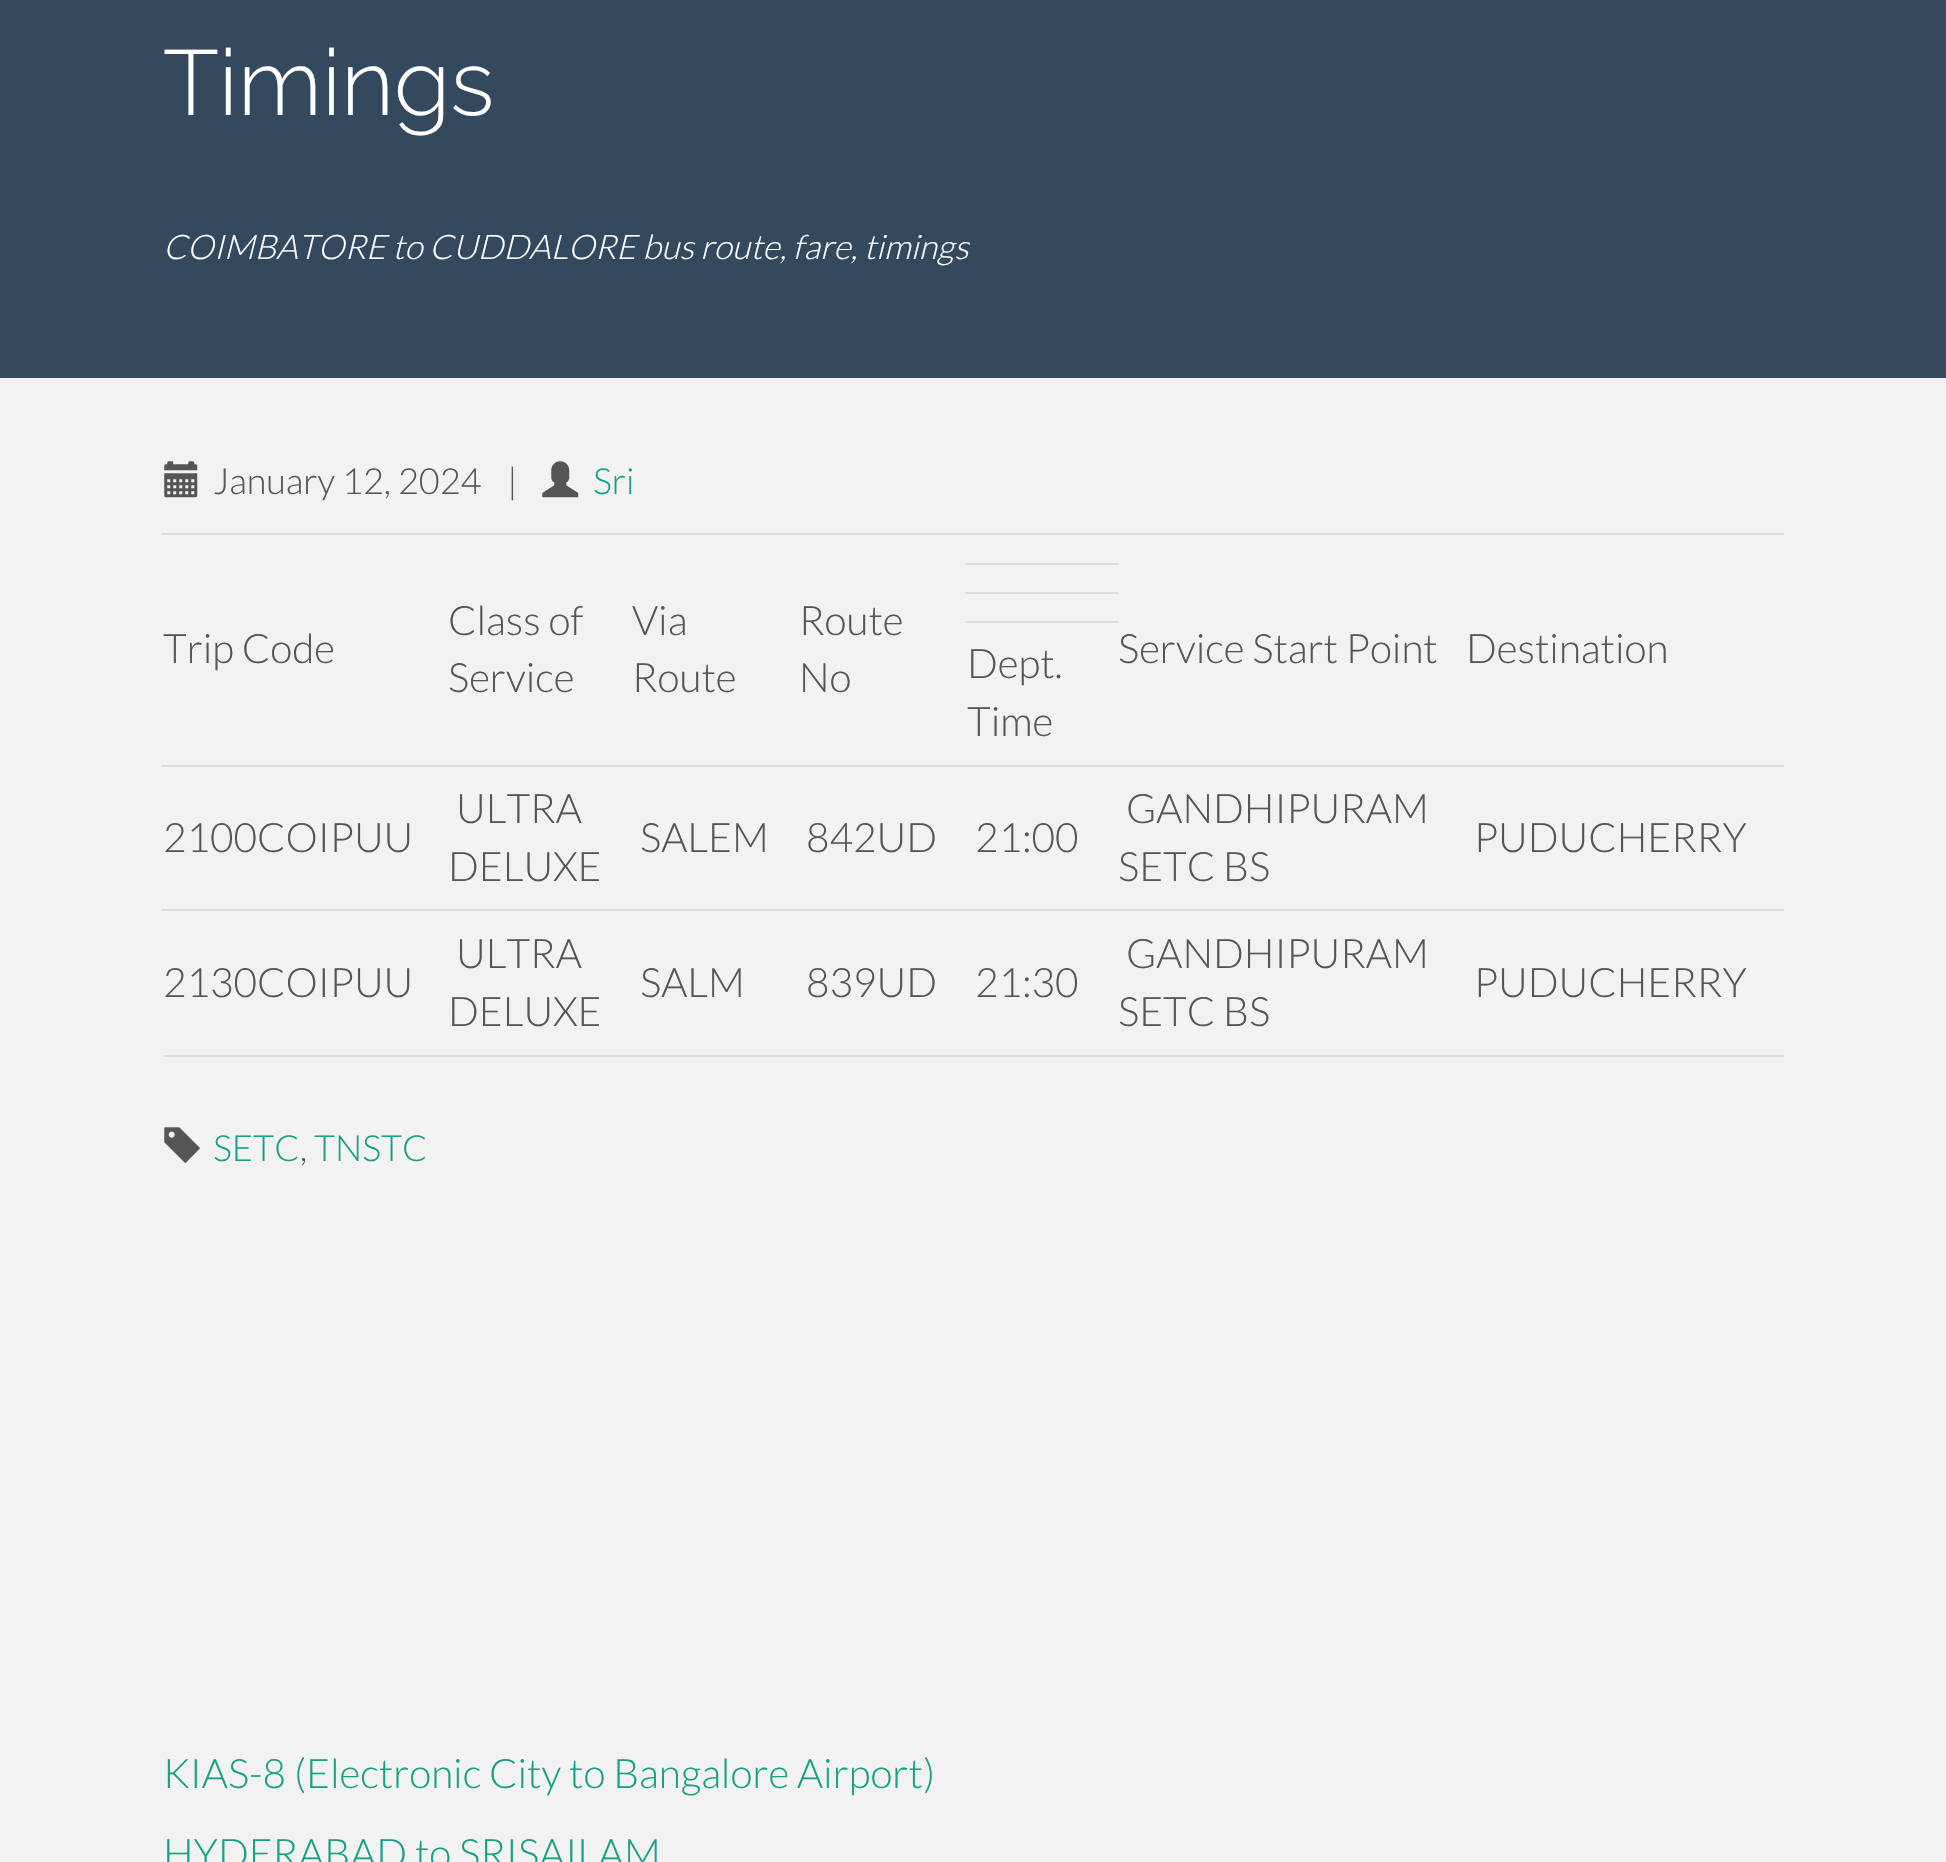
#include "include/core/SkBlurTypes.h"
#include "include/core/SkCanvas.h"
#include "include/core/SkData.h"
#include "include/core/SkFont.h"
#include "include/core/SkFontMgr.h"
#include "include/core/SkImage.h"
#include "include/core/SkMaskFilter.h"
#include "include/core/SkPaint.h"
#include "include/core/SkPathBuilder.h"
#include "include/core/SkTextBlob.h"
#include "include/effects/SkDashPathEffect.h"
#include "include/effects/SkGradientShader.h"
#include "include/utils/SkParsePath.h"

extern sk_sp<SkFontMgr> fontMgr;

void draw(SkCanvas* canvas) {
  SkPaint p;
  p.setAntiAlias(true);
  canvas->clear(SkColorSetRGB(242, 242, 242));
  p.setColor(SkColorSetRGB(52, 73, 94));
  canvas->drawRect(SkRect::MakeLTRB(0, 0, 1946, 378), p);
  canvas->drawImageRect(SkImages::DeferredFromEncodedData(SkData::MakeFromFileName("images/1.png")), SkRect::MakeLTRB(164, 461, 198, 498), SkSamplingOptions());
  canvas->drawImageRect(SkImages::DeferredFromEncodedData(SkData::MakeFromFileName("images/2.png")), SkRect::MakeLTRB(542, 461, 579, 498), SkSamplingOptions());
  p.setColor(SkColorSetRGB(221, 221, 221));
  canvas->drawRect(SkRect::MakeLTRB(164, 1055, 1784, 1057), p);
  canvas->drawRect(SkRect::MakeLTRB(965, 563, 1118, 565), p);
  canvas->drawRect(SkRect::MakeLTRB(965, 592, 1118, 594), p);
  canvas->drawRect(SkRect::MakeLTRB(162, 533, 1784, 535), p);
  canvas->drawRect(SkRect::MakeLTRB(965, 621, 1118, 623), p);
  canvas->drawRect(SkRect::MakeLTRB(162, 765, 1784, 767), p);
  canvas->drawRect(SkRect::MakeLTRB(162, 909, 1784, 911), p);
  canvas->drawImageRect(SkImages::DeferredFromEncodedData(SkData::MakeFromFileName("images/3.png")), SkRect::MakeLTRB(164, 1127, 200, 1163), SkSamplingOptions());
  SkFont font1(fontMgr->matchFamilyStyle("Raleway", SkFontStyle(300, SkFontStyle::kNormal_Width, SkFontStyle::kUpright_Slant)), 92);
  font1.setSubpixel(true);
  p.setColor(SK_ColorWHITE);
  canvas->drawString("Timings", 163, 115, font1, p);
  SkFont font2(fontMgr->matchFamilyStyle("Lato", SkFontStyle(300, SkFontStyle::kNormal_Width, SkFontStyle::kItalic_Slant)), 33.75f);
  font2.setSubpixel(true);
  canvas->drawString("COIMBATORE to CUDDALORE bus route, fare, timings", 163, 259, font2, p);
  SkFont font3(fontMgr->matchFamilyStyle("Lato", SkFontStyle(300, SkFontStyle::kNormal_Width, SkFontStyle::kUpright_Slant)), 36);
  font3.setSubpixel(true);
  p.setColor(SkColorSetRGB(85, 85, 85));
  canvas->drawString("January 12, 2024", 213, 494, font3, p);
  canvas->drawString("|", 507, 494, font3, p);
  p.setColor(SkColorSetRGB(22, 160, 133));
  canvas->drawString("Sri", 593, 494, font3, p);
  SkFont font4(fontMgr->matchFamilyStyle("Lato", SkFontStyle(300, SkFontStyle::kNormal_Width, SkFontStyle::kUpright_Slant)), 40.5f);
  font4.setSubpixel(true);
  p.setColor(SkColorSetRGB(85, 85, 85));
  canvas->drawString("Trip Code", 163, 663, font4, p);
  canvas->drawString("Class of", 448, 635, font4, p);
  canvas->drawString("Service", 448, 692, font4, p);
  canvas->drawString("Via", 632, 635, font4, p);
  canvas->drawString("Route", 632, 692, font4, p);
  canvas->drawString("Route", 799, 635, font4, p);
  canvas->drawString("No", 799, 692, font4, p);
  canvas->drawString("Service Start Point", 1118, 663, font4, p);
  canvas->drawString("Destination", 1466, 663, font4, p);
  canvas->drawString("Dept.", 967, 678, font4, p);
  canvas->drawString("Time", 967, 736, font4, p);
  canvas->drawString("2100COIPUU", 163, 852, font4, p);
  canvas->drawString("ULTRA", 456, 823, font4, p);
  canvas->drawString("DELUXE", 448, 881, font4, p);
  canvas->drawString("SALEM", 640, 852, font4, p);
  canvas->drawString("842UD", 806, 852, font4, p);
  canvas->drawString("21:00", 975, 852, font4, p);
  canvas->drawString("GANDHIPURAM", 1126, 823, font4, p);
  canvas->drawString("SETC BS", 1118, 881, font4, p);
  canvas->drawString("PUDUCHERRY", 1474, 852, font4, p);
  canvas->drawString("2130COIPUU", 163, 997, font4, p);
  canvas->drawString("ULTRA", 456, 968, font4, p);
  canvas->drawString("DELUXE", 448, 1026, font4, p);
  canvas->drawString("SALM", 640, 997, font4, p);
  canvas->drawString("839UD", 806, 997, font4, p);
  canvas->drawString("21:30", 975, 997, font4, p);
  canvas->drawString("GANDHIPURAM", 1126, 968, font4, p);
  canvas->drawString("SETC BS", 1118, 1026, font4, p);
  canvas->drawString("PUDUCHERRY", 1474, 997, font4, p);
  p.setColor(SkColorSetRGB(22, 160, 133));
  canvas->drawString("SETC", 213, 1161, font3, p);
  p.setColor(SkColorSetRGB(85, 85, 85));
  canvas->drawString(",", 300, 1161, font3, p);
  p.setColor(SkColorSetRGB(22, 160, 133));
  canvas->drawString("TNSTC", 314, 1161, font3, p);
  canvas->drawString("KIAS-8 (Electronic City to Bangalore Airport)", 163, 1788, font4, p);
  canvas->drawString("HYDERABAD to SRISAILAM", 163, 1868, font4, p);
}
